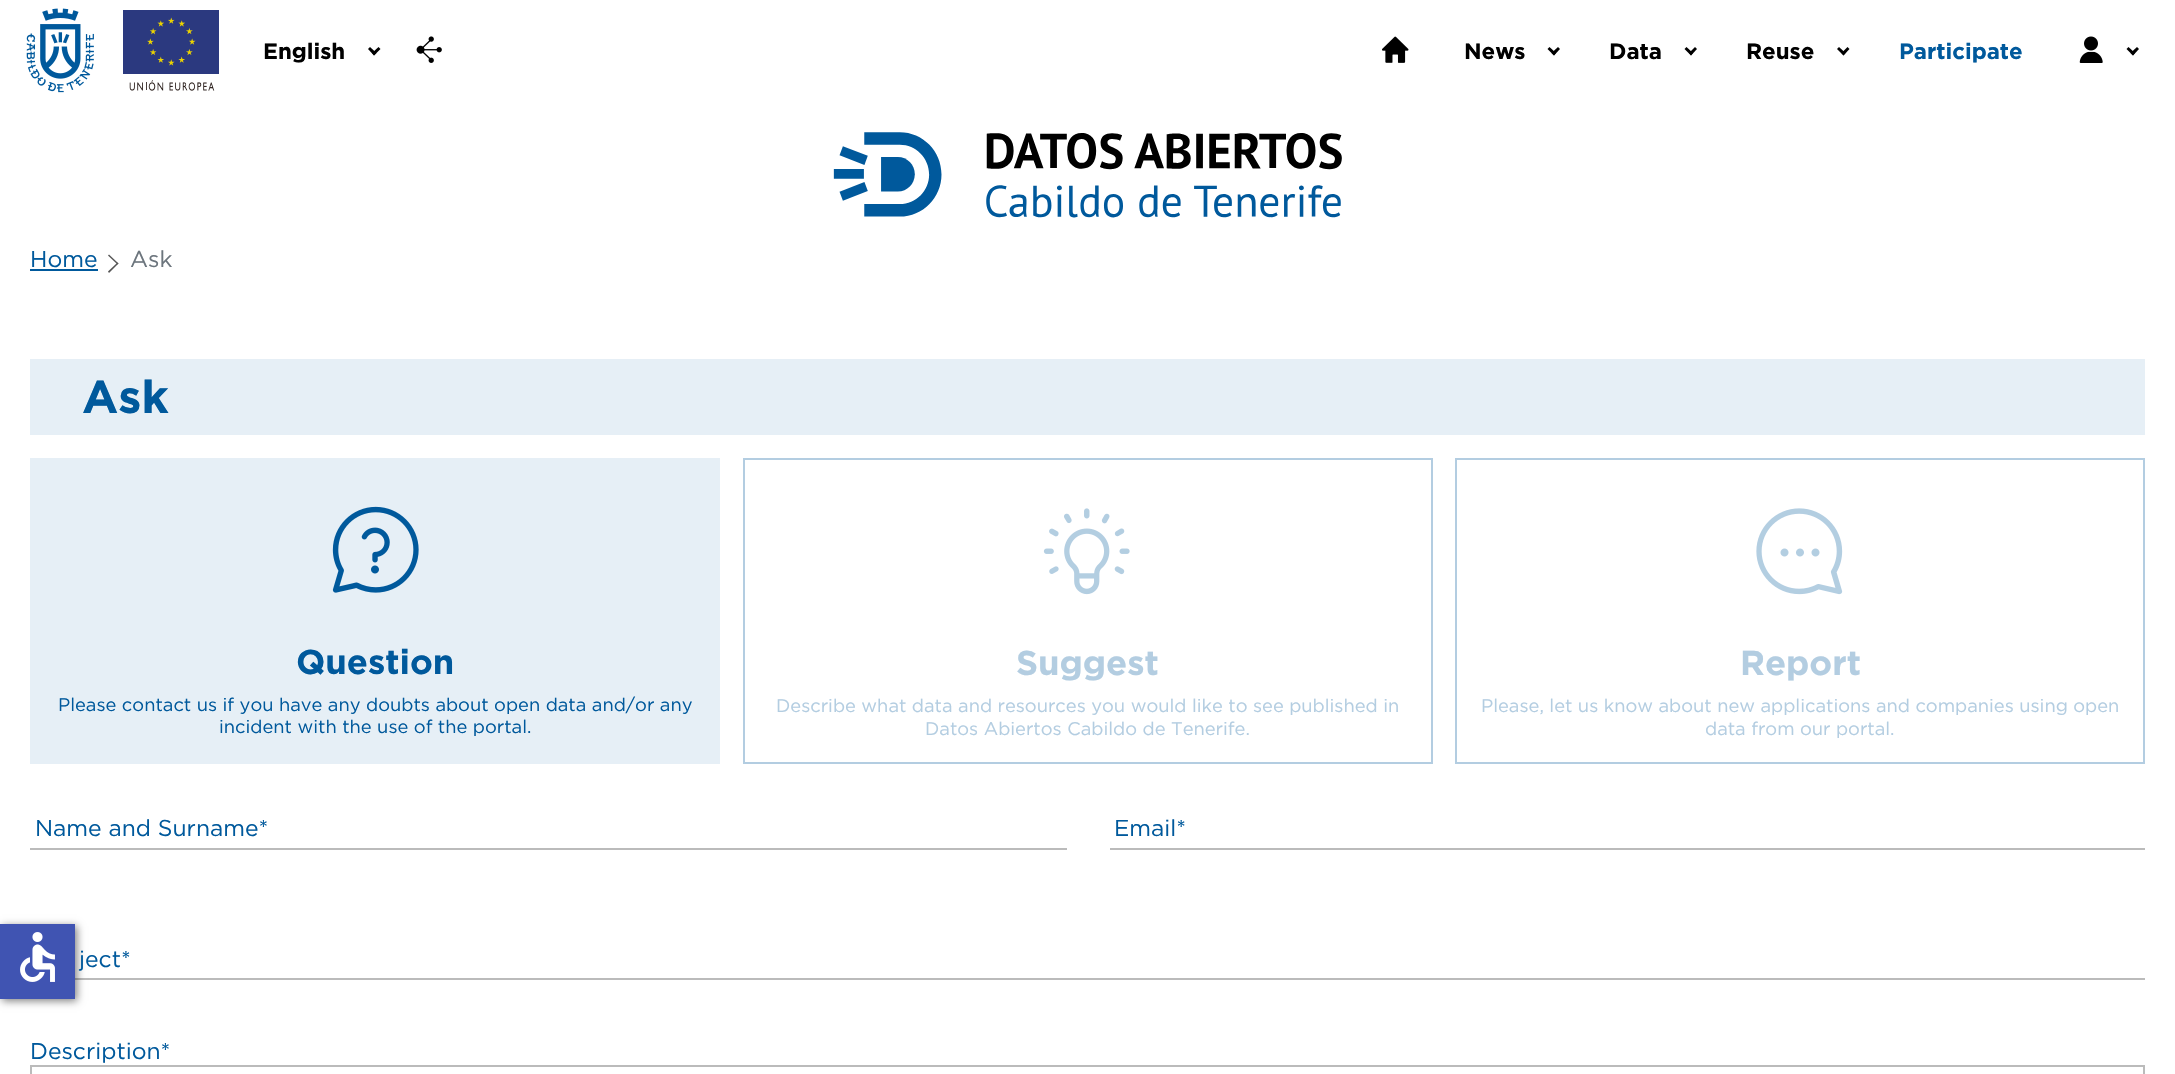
#include "include/core/SkBlurTypes.h"
#include "include/core/SkCanvas.h"
#include "include/core/SkData.h"
#include "include/core/SkFont.h"
#include "include/core/SkFontMgr.h"
#include "include/core/SkImage.h"
#include "include/core/SkMaskFilter.h"
#include "include/core/SkPaint.h"
#include "include/core/SkPathBuilder.h"
#include "include/core/SkTextBlob.h"
#include "include/effects/SkDashPathEffect.h"
#include "include/effects/SkGradientShader.h"
#include "include/utils/SkParsePath.h"

extern sk_sp<SkFontMgr> fontMgr;

void draw(SkCanvas* canvas) {
  SkPaint p;
  p.setAntiAlias(true);
  canvas->clear(SK_ColorWHITE);
  canvas->drawImageRect(SkImages::DeferredFromEncodedData(SkData::MakeFromFileName("images/1.png")), SkRect::MakeLTRB(26, 8, 94, 93), SkSamplingOptions());
  canvas->drawImageRect(SkImages::DeferredFromEncodedData(SkData::MakeFromFileName("images/2.png")), SkRect::MakeLTRB(123, 10, 219, 91), SkSamplingOptions());
  p.setColor(SK_ColorBLACK);
  canvas->drawPath(SkPathBuilder().moveTo(378.5f, 47).lineTo(380.5f, 49).lineTo(374, 55.5f).lineTo(372, 53).close().detach(), p);
  canvas->drawPath(SkPathBuilder().moveTo(370, 47).lineTo(376.5f, 53).lineTo(374, 55.5f).lineTo(368, 49).close().detach(), p);
  canvas->drawImageRect(SkImages::DeferredFromEncodedData(SkData::MakeFromFileName("images/3.png")), SkRect::MakeLTRB(416, 36, 442, 63), SkSamplingOptions());
  canvas->drawImageRect(SkImages::DeferredFromEncodedData(SkData::MakeFromFileName("images/4.png")), SkRect::MakeLTRB(1382, 36, 1409, 63), SkSamplingOptions());
  canvas->drawPath(SkPathBuilder().moveTo(1558, 47).lineTo(1560, 49).lineTo(1554, 55.5f).lineTo(1551.5f, 53).close().detach(), p);
  canvas->drawPath(SkPathBuilder().moveTo(1549.5f, 47).lineTo(1556, 53).lineTo(1554, 55.5f).lineTo(1547.5f, 49).close().detach(), p);
  canvas->drawPath(SkPathBuilder().moveTo(1695, 47).lineTo(1697, 49).lineTo(1691, 55.5f).lineTo(1689, 53).close().detach(), p);
  canvas->drawPath(SkPathBuilder().moveTo(1686.5f, 47).lineTo(1693, 53).lineTo(1691, 55.5f).lineTo(1684.5f, 49).close().detach(), p);
  canvas->drawPath(SkPathBuilder().moveTo(1847.5f, 47).lineTo(1849.5f, 49).lineTo(1843.5f, 55.5f).lineTo(1841.5f, 53).close().detach(), p);
  canvas->drawPath(SkPathBuilder().moveTo(1839, 47).lineTo(1845.5f, 53).lineTo(1843.5f, 55.5f).lineTo(1837, 49).close().detach(), p);
  canvas->drawImageRect(SkImages::DeferredFromEncodedData(SkData::MakeFromFileName("images/5.png")), SkRect::MakeLTRB(2079, 36, 2103, 63), SkSamplingOptions());
  canvas->drawPath(SkPathBuilder().moveTo(2137, 47).lineTo(2139, 49).lineTo(2133, 55.5f).lineTo(2130.5f, 53).close().detach(), p);
  canvas->drawPath(SkPathBuilder().moveTo(2128.5f, 47).lineTo(2135, 53).lineTo(2133, 55.5f).lineTo(2126.5f, 49).close().detach(), p);
  canvas->drawImageRect(SkImages::DeferredFromEncodedData(SkData::MakeFromFileName("images/6.png")), SkRect::MakeLTRB(833, 132, 1342, 218), SkSamplingOptions());
  p.setColor(SkColorSetRGB(0, 89, 156));
  canvas->drawRect(SkRect::MakeLTRB(30, 269, 98, 271), p);
  p.setColor(SkColorSetRGB(85, 85, 85));
  canvas->drawPath(SkPathBuilder().moveTo(109, 254.5f).lineTo(118.5f, 263.5f).lineTo(117.5f, 264.5f).lineTo(108, 255.5f).close().detach(), p);
  canvas->drawPath(SkPathBuilder().moveTo(117.5f, 262.5f).lineTo(118.5f, 263.5f).lineTo(109, 273).lineTo(108, 271.5f).close().detach(), p);
  p.setColor(SkColorSetRGB(230, 239, 246));
  canvas->drawRect(SkRect::MakeLTRB(30, 359, 2145, 435), p);
  canvas->drawRect(SkRect::MakeLTRB(30, 458, 720, 764), p);
  canvas->drawImageRect(SkImages::DeferredFromEncodedData(SkData::MakeFromFileName("images/7.png")), SkRect::MakeLTRB(332, 506, 419, 593), SkSamplingOptions());
  canvas->drawImageRect(SkImages::DeferredFromEncodedData(SkData::MakeFromFileName("images/8.png")), SkRect::MakeLTRB(1043, 508, 1130, 595), SkSamplingOptions());
  p.setStyle(SkPaint::kStroke_Style);
  p.setStrokeWidth(2);
  p.setColor(SkColorSetRGB(179, 205, 225));
  canvas->drawRect(SkRect::MakeLTRB(744, 459, 1432, 763), p);
  canvas->drawImageRect(SkImages::DeferredFromEncodedData(SkData::MakeFromFileName("images/9.png")), SkRect::MakeLTRB(1756, 508, 1843, 595), SkSamplingOptions());
  canvas->drawRect(SkRect::MakeLTRB(1456, 459, 2144, 763), p);
  p.setStyle(SkPaint::kFill_Style);
  p.setColor(SkColorSetRGB(187, 187, 187));
  canvas->drawRect(SkRect::MakeLTRB(30, 848, 1067, 850), p);
  canvas->drawRect(SkRect::MakeLTRB(1110, 848, 2145, 850), p);
  canvas->drawRect(SkRect::MakeLTRB(75, 978, 2145, 980), p);
  p.setStyle(SkPaint::kStroke_Style);
  canvas->drawRect(SkRect::MakeLTRB(31, 1066, 2144, 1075), p);
  p.setStyle(SkPaint::kFill_Style);
  p.setColor(SkColorSetARGB(128, 0, 0, 0));
  p.setMaskFilter(SkMaskFilter::MakeBlur(kNormal_SkBlurStyle, 4));
  canvas->drawRect(SkRect::MakeLTRB(2, 926, 77, 1001), p);
  p.setMaskFilter(nullptr);
  p.setColor(SkColorSetRGB(64, 84, 178));
  canvas->drawRect(SkRect::MakeLTRB(0, 924, 75, 999), p);
  canvas->drawImageRect(SkImages::DeferredFromEncodedData(SkData::MakeFromFileName("images/10.png")), SkRect::MakeLTRB(20, 932, 55, 982), SkSamplingOptions());
  SkFont font1(fontMgr->matchFamilyStyle("Gotham", SkFontStyle::Bold()), 22.25f);
  font1.setSubpixel(true);
  p.setColor(SK_ColorBLACK);
  canvas->drawString("English", 263, 59, font1, p);
  canvas->drawString("News", 1464, 59, font1, p);
  canvas->drawString("Data", 1609, 59, font1, p);
  canvas->drawString("Reuse", 1746, 59, font1, p);
  p.setColor(SkColorSetRGB(0, 89, 156));
  canvas->drawString("Participate", 1899, 59, font1, p);
  SkFont font2(fontMgr->matchFamilyStyle("Gotham", SkFontStyle::Normal()), 22.9f);
  font2.setSubpixel(true);
  canvas->drawString("Home", 30, 267, font2, p);
  p.setColor(SkColorSetRGB(108, 117, 125));
  canvas->drawString("Ask", 130, 267, font2, p);
  SkFont font3(fontMgr->matchFamilyStyle("Gotham", SkFontStyle::Bold()), 46);
  font3.setSubpixel(true);
  p.setColor(SkColorSetRGB(0, 89, 156));
  canvas->drawString("Ask", 82, 413, font3, p);
  SkFont font4(fontMgr->matchFamilyStyle("Gotham", SkFontStyle::Bold()), 34.5f);
  font4.setSubpixel(true);
  canvas->drawString("Question", 296, 674, font4, p);
  SkFont font5(fontMgr->matchFamilyStyle("Gotham", SkFontStyle::Normal()), 18.3f);
  font5.setSubpixel(true);
  canvas->drawString("Please contact us if you have any doubts about open data and/or any", 58, 711, font5, p);
  canvas->drawString("incident with the use of the portal.", 219, 733, font5, p);
  p.setColor(SkColorSetRGB(179, 205, 225));
  canvas->drawString("Suggest", 1016, 675, font4, p);
  canvas->drawString("Describe what data and resources you would like to see published in", 776, 712, font5, p);
  canvas->drawString("Datos Abiertos Cabildo de Tenerife.", 925, 735, font5, p);
  canvas->drawString("Report", 1740, 675, font4, p);
  canvas->drawString("Please, let us know about new applications and companies using open", 1481, 712, font5, p);
  canvas->drawString("data from our portal.", 1705, 735, font5, p);
  p.setColor(SkColorSetRGB(0, 89, 156));
  canvas->drawString("Name and Surname*", 35, 836, font2, p);
  canvas->drawString("Email*", 1114, 836, font2, p);
  canvas->drawString("ject*", 79, 967, font2, p);
  canvas->drawString("Description*", 30, 1059, font2, p);
}
